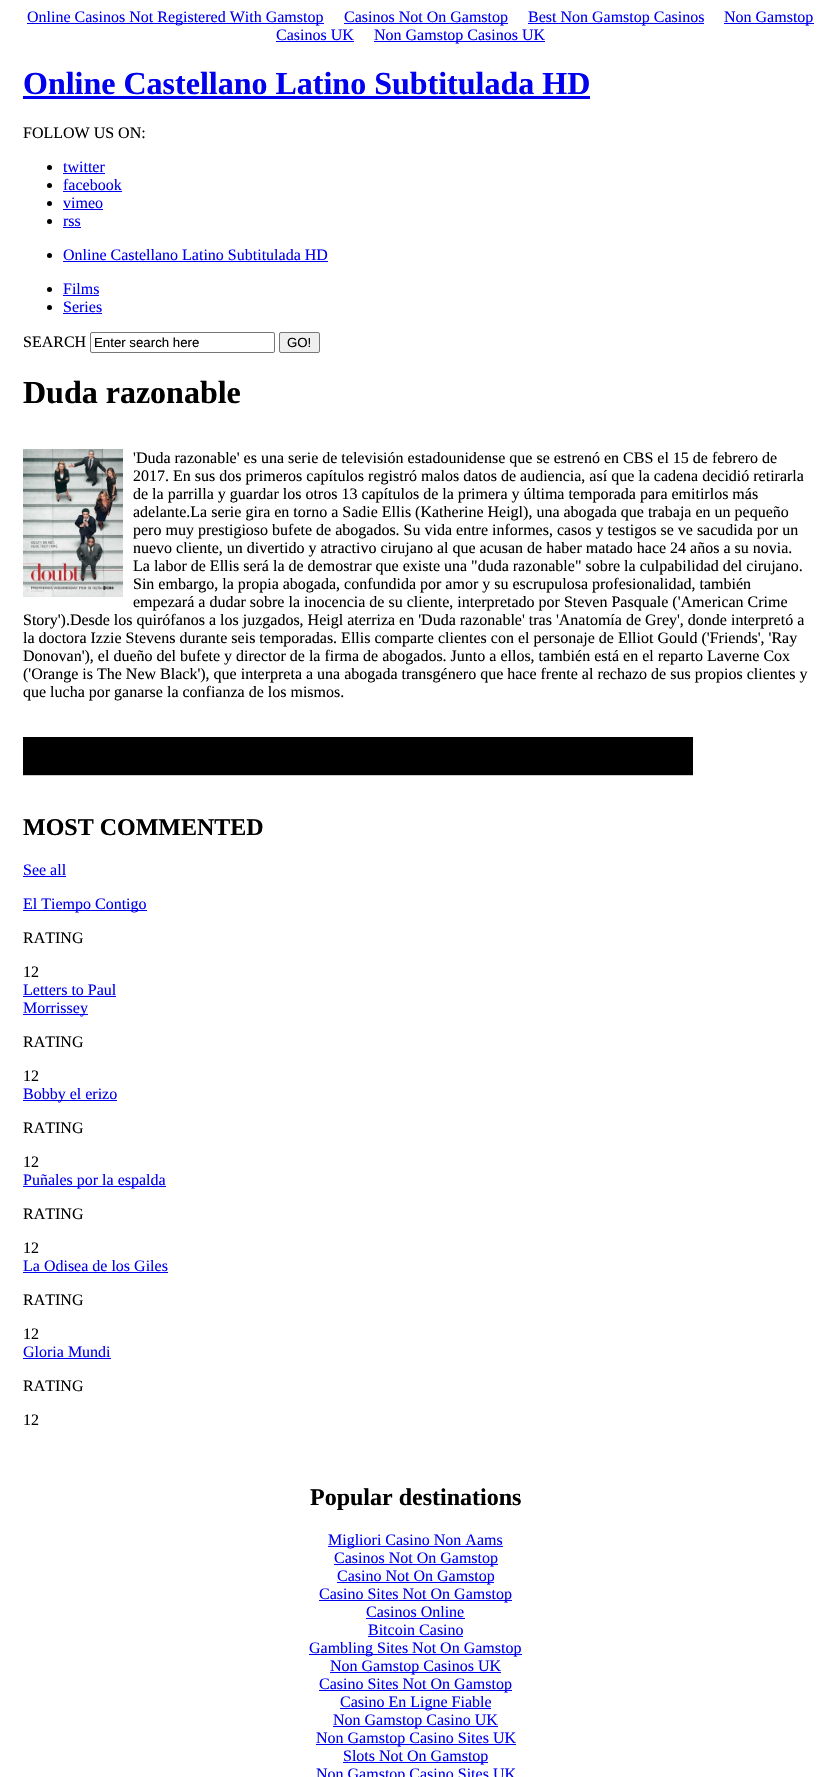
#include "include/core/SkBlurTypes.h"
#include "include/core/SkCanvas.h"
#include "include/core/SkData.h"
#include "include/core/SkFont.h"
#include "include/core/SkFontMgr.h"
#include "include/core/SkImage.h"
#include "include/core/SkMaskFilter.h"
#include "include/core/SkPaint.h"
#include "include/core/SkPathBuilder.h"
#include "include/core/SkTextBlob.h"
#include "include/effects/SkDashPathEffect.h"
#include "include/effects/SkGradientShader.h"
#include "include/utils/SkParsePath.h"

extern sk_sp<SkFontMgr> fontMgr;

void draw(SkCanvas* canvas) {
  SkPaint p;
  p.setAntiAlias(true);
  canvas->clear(SK_ColorWHITE);
  p.setColor(SkColorSetRGB(0, 0, 238));
  canvas->drawRect(SkRect::MakeLTRB(27, 23, 324, 24), p);
  canvas->drawRect(SkRect::MakeLTRB(344, 23, 508, 24), p);
  canvas->drawRect(SkRect::MakeLTRB(528, 23, 704, 24), p);
  canvas->drawRect(SkRect::MakeLTRB(724, 23, 814, 24), p);
  canvas->drawRect(SkRect::MakeLTRB(276, 41, 354, 42), p);
  canvas->drawRect(SkRect::MakeLTRB(374, 41, 545, 42), p);
  canvas->drawRect(SkRect::MakeLTRB(23, 96, 590, 99), p);
  p.setColor(SK_ColorBLACK);
  canvas->drawCircle(49.5f, 167.5f, 2.5f, p);
  p.setColor(SkColorSetRGB(0, 0, 238));
  canvas->drawRect(SkRect::MakeLTRB(63, 173, 105, 174), p);
  p.setColor(SK_ColorBLACK);
  canvas->drawCircle(49.5f, 185.5f, 2.5f, p);
  p.setColor(SkColorSetRGB(0, 0, 238));
  canvas->drawRect(SkRect::MakeLTRB(63, 191, 122, 192), p);
  p.setColor(SK_ColorBLACK);
  canvas->drawCircle(49.5f, 203.5f, 2.5f, p);
  p.setColor(SkColorSetRGB(0, 0, 238));
  canvas->drawRect(SkRect::MakeLTRB(63, 209, 103, 210), p);
  p.setColor(SK_ColorBLACK);
  canvas->drawCircle(49.5f, 221.5f, 2.5f, p);
  p.setColor(SkColorSetRGB(0, 0, 238));
  canvas->drawRect(SkRect::MakeLTRB(63, 227, 81, 228), p);
  p.setColor(SK_ColorBLACK);
  canvas->drawCircle(49.5f, 255.5f, 2.5f, p);
  p.setColor(SkColorSetRGB(0, 0, 238));
  canvas->drawRect(SkRect::MakeLTRB(63, 261, 328, 262), p);
  p.setColor(SK_ColorBLACK);
  canvas->drawCircle(49.5f, 289.5f, 2.5f, p);
  p.setColor(SkColorSetRGB(0, 0, 238));
  canvas->drawRect(SkRect::MakeLTRB(63, 295, 99, 296), p);
  p.setColor(SK_ColorBLACK);
  canvas->drawCircle(49.5f, 307.5f, 2.5f, p);
  p.setColor(SkColorSetRGB(0, 0, 238));
  canvas->drawRect(SkRect::MakeLTRB(63, 313, 102, 314), p);
  p.setStyle(SkPaint::kStroke_Style);
  p.setStrokeWidth(1);
  p.setColor(SkColorSetRGB(118, 118, 118));
  canvas->drawRoundRect(SkRect::MakeLTRB(90.5f, 332.5f, 274.5f, 352.5f), 1.5f, 1.5f, p);
  p.setStyle(SkPaint::kFill_Style);
  p.setColor(SkColorSetRGB(239, 239, 239));
  canvas->drawRoundRect(SkRect::MakeLTRB(279.5f, 332.5f, 319.5f, 352.5f), 1.5f, 1.5f, p);
  p.setStyle(SkPaint::kStroke_Style);
  p.setColor(SkColorSetRGB(118, 118, 118));
  canvas->drawRoundRect(SkRect::MakeLTRB(279.5f, 332.5f, 319.5f, 352.5f), 1.5f, 1.5f, p);
  canvas->drawImageRect(SkImages::DeferredFromEncodedData(SkData::MakeFromFileName("images/1.png")), SkRect::MakeLTRB(23, 449, 123, 597), SkSamplingOptions());
  p.setStyle(SkPaint::kFill_Style);
  p.setColor(SK_ColorBLACK);
  canvas->drawRect(SkRect::MakeLTRB(23, 737, 693, 775), p);
  p.setColor(SkColorSetRGB(204, 204, 204));
  canvas->drawRect(SkRect::MakeLTRB(23, 775, 693, 776), p);
  p.setColor(SkColorSetRGB(0, 0, 238));
  canvas->drawRect(SkRect::MakeLTRB(23, 876, 66, 877), p);
  canvas->drawRect(SkRect::MakeLTRB(23, 910, 147, 911), p);
  canvas->drawRect(SkRect::MakeLTRB(23, 996, 116, 997), p);
  canvas->drawRect(SkRect::MakeLTRB(23, 1014, 88, 1015), p);
  canvas->drawRect(SkRect::MakeLTRB(23, 1100, 117, 1101), p);
  canvas->drawRect(SkRect::MakeLTRB(23, 1186, 166, 1187), p);
  canvas->drawRect(SkRect::MakeLTRB(23, 1272, 168, 1273), p);
  canvas->drawRect(SkRect::MakeLTRB(23, 1358, 111, 1359), p);
  canvas->drawRect(SkRect::MakeLTRB(328, 1546, 503, 1547), p);
  canvas->drawRect(SkRect::MakeLTRB(334, 1564, 498, 1565), p);
  canvas->drawRect(SkRect::MakeLTRB(337, 1582, 494, 1583), p);
  canvas->drawRect(SkRect::MakeLTRB(319, 1600, 512, 1601), p);
  canvas->drawRect(SkRect::MakeLTRB(366, 1618, 465, 1619), p);
  canvas->drawRect(SkRect::MakeLTRB(368, 1636, 463, 1637), p);
  canvas->drawRect(SkRect::MakeLTRB(309, 1654, 522, 1655), p);
  canvas->drawRect(SkRect::MakeLTRB(330, 1672, 501, 1673), p);
  canvas->drawRect(SkRect::MakeLTRB(319, 1690, 512, 1691), p);
  canvas->drawRect(SkRect::MakeLTRB(340, 1708, 491, 1709), p);
  canvas->drawRect(SkRect::MakeLTRB(333, 1726, 498, 1727), p);
  canvas->drawRect(SkRect::MakeLTRB(316, 1744, 516, 1745), p);
  canvas->drawRect(SkRect::MakeLTRB(343, 1762, 488, 1763), p);
  SkFont font1(fontMgr->matchFamilyStyle("Liberation Serif", SkFontStyle::Normal()), 16);
  font1.setSubpixel(true);
  canvas->drawString("Online Casinos Not Registered With Gamstop", 27, 22, font1, p);
  canvas->drawString("Casinos Not On Gamstop", 344, 22, font1, p);
  canvas->drawString("Best Non Gamstop Casinos", 528, 22, font1, p);
  canvas->drawString("Non Gamstop", 724, 22, font1, p);
  canvas->drawString("Casinos UK", 276, 40, font1, p);
  canvas->drawString("Non Gamstop Casinos UK", 374, 40, font1, p);
  SkFont font2(fontMgr->matchFamilyStyle("Liberation Serif", SkFontStyle::Bold()), 32);
  font2.setSubpixel(true);
  canvas->drawString("Online Castellano Latino Subtitulada HD", 23, 94, font2, p);
  p.setColor(SK_ColorBLACK);
  canvas->drawString("FOLLOW US ON:", 23, 138, font1, p);
  p.setColor(SkColorSetRGB(0, 0, 238));
  canvas->drawString("twitter", 63, 172, font1, p);
  canvas->drawString("facebook", 63, 190, font1, p);
  canvas->drawString("vimeo", 63, 208, font1, p);
  canvas->drawString("rss", 63, 226, font1, p);
  canvas->drawString("Online Castellano Latino Subtitulada HD", 63, 260, font1, p);
  canvas->drawString("Films", 63, 294, font1, p);
  canvas->drawString("Series", 63, 312, font1, p);
  p.setColor(SK_ColorBLACK);
  canvas->drawString("SEARCH", 23, 347, font1, p);
  SkFont font3(fontMgr->matchFamilyStyle("Liberation Sans", SkFontStyle::Normal()), 13.25f);
  font3.setSubpixel(true);
  canvas->drawString("Enter search here", 94, 347, font3, p);
  canvas->drawString("GO!", 287, 347, font3, p);
  canvas->drawString("Duda razonable", 23, 403, font2, p);
  canvas->drawString("'Duda razonable' es una serie de televisión estadounidense que se estrenó en CBS el 15 de febrero de", 133, 463, font1, p);
  canvas->drawString("2017. En sus dos primeros capítulos registró malos datos de audiencia, así que la cadena decidió retirarla", 133, 481, font1, p);
  canvas->drawString("de la parrilla y guardar los otros 13 capítulos de la primera y última temporada para emitirlos más", 133, 499, font1, p);
  canvas->drawString("adelante.La serie gira en torno a Sadie Ellis (Katherine Heigl), una abogada que trabaja en un pequeño", 133, 517, font1, p);
  canvas->drawString("pero muy prestigioso bufete de abogados. Su vida entre informes, casos y testigos se ve sacudida por un", 133, 535, font1, p);
  canvas->drawString("nuevo cliente, un divertido y atractivo cirujano al que acusan de haber matado hace 24 años a su novia.", 133, 553, font1, p);
  canvas->drawString("La labor de Ellis será la de demostrar que existe una \"duda razonable\" sobre la culpabilidad del cirujano.", 133, 571, font1, p);
  canvas->drawString("Sin embargo, la propia abogada, confundida por amor y su escrupulosa profesionalidad, también", 133, 589, font1, p);
  canvas->drawString("empezará a dudar sobre la inocencia de su cliente, interpretado por Steven Pasquale ('American Crime", 133, 607, font1, p);
  canvas->drawString("Story').Desde los quirófanos a los juzgados, Heigl aterriza en 'Duda razonable' tras 'Anatomía de Grey', donde interpretó a", 23, 625, font1, p);
  canvas->drawString("la doctora Izzie Stevens durante seis temporadas. Ellis comparte clientes con el personaje de Elliot Gould ('Friends', 'Ray", 23, 643, font1, p);
  canvas->drawString("Donovan'), el dueño del bufete y director de la firma de abogados. Junto a ellos, también está en el reparto Laverne Cox", 23, 661, font1, p);
  canvas->drawString("('Orange is The New Black'), que interpreta a una abogada transgénero que hace frente al rechazo de sus propios clientes y", 23, 679, font1, p);
  canvas->drawString("que lucha por ganarse la confianza de los mismos.", 23, 697, font1, p);
  SkFont font4(fontMgr->matchFamilyStyle("Liberation Serif", SkFontStyle::Bold()), 24);
  font4.setSubpixel(true);
  canvas->drawString("MOST COMMENTED", 23, 835, font4, p);
  p.setColor(SkColorSetRGB(0, 0, 238));
  canvas->drawString("See all", 23, 875, font1, p);
  canvas->drawString("El Tiempo Contigo", 23, 909, font1, p);
  p.setColor(SK_ColorBLACK);
  canvas->drawString("RATING", 23, 943, font1, p);
  canvas->drawString("12", 23, 977, font1, p);
  p.setColor(SkColorSetRGB(0, 0, 238));
  canvas->drawString("Letters to Paul", 23, 995, font1, p);
  canvas->drawString("Morrissey", 23, 1013, font1, p);
  p.setColor(SK_ColorBLACK);
  canvas->drawString("RATING", 23, 1047, font1, p);
  canvas->drawString("12", 23, 1081, font1, p);
  p.setColor(SkColorSetRGB(0, 0, 238));
  canvas->drawString("Bobby el erizo", 23, 1099, font1, p);
  p.setColor(SK_ColorBLACK);
  canvas->drawString("RATING", 23, 1133, font1, p);
  canvas->drawString("12", 23, 1167, font1, p);
  p.setColor(SkColorSetRGB(0, 0, 238));
  canvas->drawString("Puñales por la espalda", 23, 1185, font1, p);
  p.setColor(SK_ColorBLACK);
  canvas->drawString("RATING", 23, 1219, font1, p);
  canvas->drawString("12", 23, 1253, font1, p);
  p.setColor(SkColorSetRGB(0, 0, 238));
  canvas->drawString("La Odisea de los Giles", 23, 1271, font1, p);
  p.setColor(SK_ColorBLACK);
  canvas->drawString("RATING", 23, 1305, font1, p);
  canvas->drawString("12", 23, 1339, font1, p);
  p.setColor(SkColorSetRGB(0, 0, 238));
  canvas->drawString("Gloria Mundi", 23, 1357, font1, p);
  p.setColor(SK_ColorBLACK);
  canvas->drawString("RATING", 23, 1391, font1, p);
  canvas->drawString("12", 23, 1425, font1, p);
  canvas->drawString("Popular destinations", 310, 1505, font4, p);
  p.setColor(SkColorSetRGB(0, 0, 238));
  canvas->drawString("Migliori Casino Non Aams", 328, 1545, font1, p);
  canvas->drawString("Casinos Not On Gamstop", 334, 1563, font1, p);
  canvas->drawString("Casino Not On Gamstop", 337, 1581, font1, p);
  canvas->drawString("Casino Sites Not On Gamstop", 319, 1599, font1, p);
  canvas->drawString("Casinos Online", 366, 1617, font1, p);
  canvas->drawString("Bitcoin Casino", 368, 1635, font1, p);
  canvas->drawString("Gambling Sites Not On Gamstop", 309, 1653, font1, p);
  canvas->drawString("Non Gamstop Casinos UK", 330, 1671, font1, p);
  canvas->drawString("Casino Sites Not On Gamstop", 319, 1689, font1, p);
  canvas->drawString("Casino En Ligne Fiable", 340, 1707, font1, p);
  canvas->drawString("Non Gamstop Casino UK", 333, 1725, font1, p);
  canvas->drawString("Non Gamstop Casino Sites UK", 316, 1743, font1, p);
  canvas->drawString("Slots Not On Gamstop", 343, 1761, font1, p);
  canvas->drawString("Non Gamstop Casino Sites UK", 316, 1779, font1, p);
}
